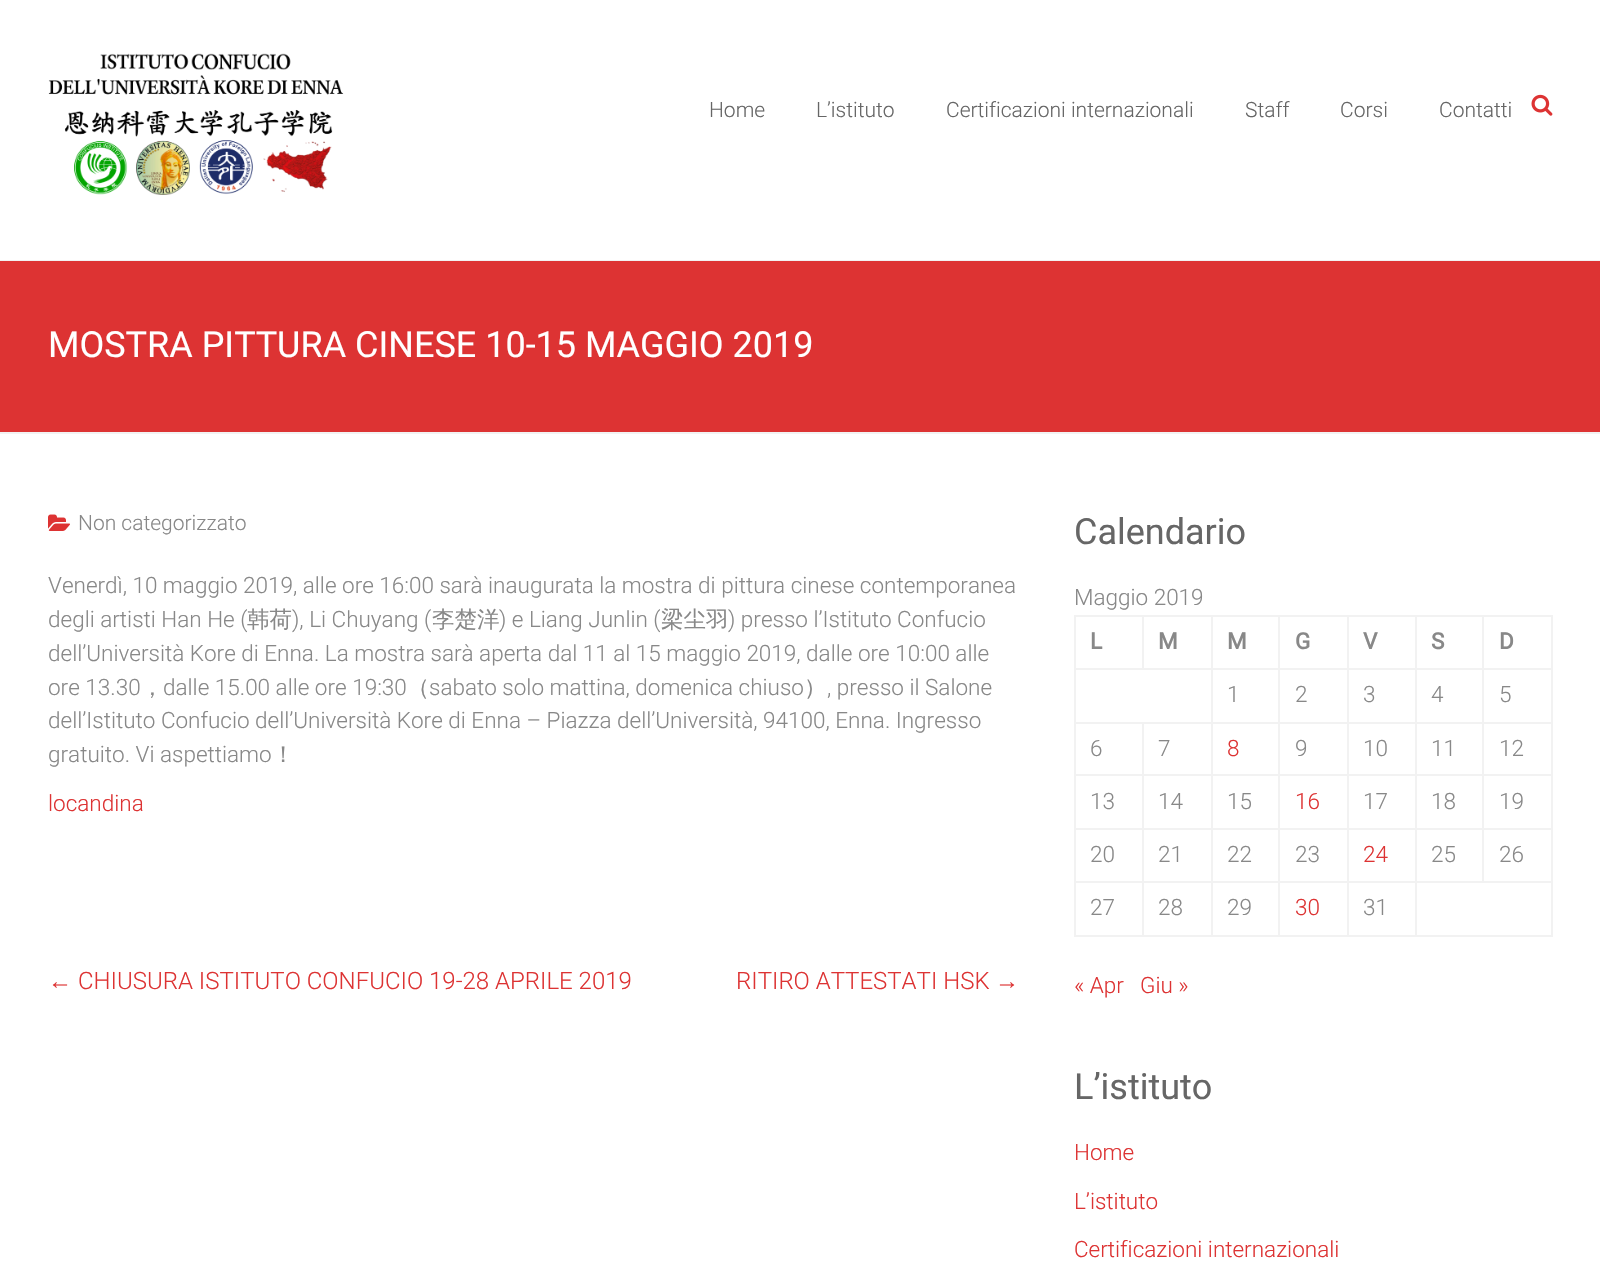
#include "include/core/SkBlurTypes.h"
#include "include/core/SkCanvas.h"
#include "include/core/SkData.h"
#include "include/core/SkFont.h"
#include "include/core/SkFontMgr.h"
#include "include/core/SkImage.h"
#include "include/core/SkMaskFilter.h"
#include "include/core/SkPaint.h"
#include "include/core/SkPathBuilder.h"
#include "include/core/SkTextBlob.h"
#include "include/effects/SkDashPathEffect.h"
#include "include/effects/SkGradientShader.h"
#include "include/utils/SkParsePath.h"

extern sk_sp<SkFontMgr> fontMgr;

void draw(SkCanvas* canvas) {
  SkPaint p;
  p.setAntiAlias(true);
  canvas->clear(SK_ColorWHITE);
  p.setColor(SkColorSetRGB(242, 242, 242));
  canvas->drawRect(SkRect::MakeLTRB(0, 260, 1600, 261), p);
  canvas->drawImageRect(SkImages::DeferredFromEncodedData(SkData::MakeFromFileName("images/1.png")), SkRect::MakeLTRB(48, 53, 344, 195), SkSamplingOptions());
  canvas->drawImageRect(SkImages::DeferredFromEncodedData(SkData::MakeFromFileName("images/2.png")), SkRect::MakeLTRB(1531, 94, 1553, 116), SkSamplingOptions());
  p.setColor(SkColorSetRGB(221, 51, 51));
  canvas->drawRect(SkRect::MakeLTRB(0, 261, 1600, 432), p);
  p.setColor(SkColorSetRGB(242, 242, 242));
  canvas->drawRect(SkRect::MakeLTRB(0, 432, 1600, 434), p);
  canvas->drawImageRect(SkImages::DeferredFromEncodedData(SkData::MakeFromFileName("images/3.png")), SkRect::MakeLTRB(48, 514, 70, 531), SkSamplingOptions());
  canvas->drawRect(SkRect::MakeLTRB(1482, 615, 1553, 617), p);
  canvas->drawRect(SkRect::MakeLTRB(1482, 668, 1553, 670), p);
  canvas->drawRect(SkRect::MakeLTRB(1482, 722, 1553, 724), p);
  canvas->drawRect(SkRect::MakeLTRB(1482, 774, 1553, 776), p);
  canvas->drawRect(SkRect::MakeLTRB(1482, 828, 1553, 830), p);
  canvas->drawRect(SkRect::MakeLTRB(1415, 881, 1553, 883), p);
  canvas->drawRect(SkRect::MakeLTRB(1482, 828, 1484, 882), p);
  canvas->drawRect(SkRect::MakeLTRB(1415, 828, 1484, 830), p);
  canvas->drawRect(SkRect::MakeLTRB(1482, 774, 1484, 830), p);
  canvas->drawRect(SkRect::MakeLTRB(1415, 774, 1484, 776), p);
  canvas->drawRect(SkRect::MakeLTRB(1482, 722, 1484, 776), p);
  canvas->drawRect(SkRect::MakeLTRB(1415, 722, 1484, 724), p);
  canvas->drawRect(SkRect::MakeLTRB(1482, 668, 1484, 723), p);
  canvas->drawRect(SkRect::MakeLTRB(1415, 668, 1484, 670), p);
  canvas->drawRect(SkRect::MakeLTRB(1482, 615, 1484, 669), p);
  canvas->drawRect(SkRect::MakeLTRB(1415, 615, 1484, 617), p);
  canvas->drawRect(SkRect::MakeLTRB(1551, 881, 1553, 936), p);
  canvas->drawRect(SkRect::MakeLTRB(1415, 935, 1553, 937), p);
  canvas->drawRect(SkRect::MakeLTRB(1415, 881, 1417, 936), p);
  canvas->drawRect(SkRect::MakeLTRB(1347, 881, 1416, 883), p);
  canvas->drawRect(SkRect::MakeLTRB(1415, 828, 1417, 882), p);
  canvas->drawRect(SkRect::MakeLTRB(1347, 828, 1416, 830), p);
  canvas->drawRect(SkRect::MakeLTRB(1415, 774, 1417, 830), p);
  canvas->drawRect(SkRect::MakeLTRB(1347, 774, 1416, 776), p);
  canvas->drawRect(SkRect::MakeLTRB(1415, 722, 1417, 776), p);
  canvas->drawRect(SkRect::MakeLTRB(1347, 722, 1416, 724), p);
  canvas->drawRect(SkRect::MakeLTRB(1415, 668, 1417, 723), p);
  canvas->drawRect(SkRect::MakeLTRB(1347, 668, 1416, 670), p);
  canvas->drawRect(SkRect::MakeLTRB(1415, 615, 1417, 669), p);
  canvas->drawRect(SkRect::MakeLTRB(1347, 615, 1416, 617), p);
  canvas->drawRect(SkRect::MakeLTRB(1347, 935, 1416, 937), p);
  canvas->drawRect(SkRect::MakeLTRB(1347, 881, 1349, 936), p);
  canvas->drawRect(SkRect::MakeLTRB(1278, 881, 1349, 883), p);
  canvas->drawRect(SkRect::MakeLTRB(1347, 828, 1349, 882), p);
  canvas->drawRect(SkRect::MakeLTRB(1278, 828, 1349, 830), p);
  canvas->drawRect(SkRect::MakeLTRB(1347, 774, 1349, 830), p);
  canvas->drawRect(SkRect::MakeLTRB(1278, 774, 1349, 776), p);
  canvas->drawRect(SkRect::MakeLTRB(1347, 722, 1349, 776), p);
  canvas->drawRect(SkRect::MakeLTRB(1278, 722, 1349, 724), p);
  canvas->drawRect(SkRect::MakeLTRB(1347, 668, 1349, 723), p);
  canvas->drawRect(SkRect::MakeLTRB(1278, 668, 1349, 670), p);
  canvas->drawRect(SkRect::MakeLTRB(1347, 615, 1349, 669), p);
  canvas->drawRect(SkRect::MakeLTRB(1278, 615, 1349, 617), p);
  canvas->drawRect(SkRect::MakeLTRB(1278, 935, 1349, 937), p);
  canvas->drawRect(SkRect::MakeLTRB(1278, 881, 1280, 936), p);
  canvas->drawRect(SkRect::MakeLTRB(1211, 881, 1280, 883), p);
  canvas->drawRect(SkRect::MakeLTRB(1278, 828, 1280, 882), p);
  canvas->drawRect(SkRect::MakeLTRB(1211, 828, 1280, 830), p);
  canvas->drawRect(SkRect::MakeLTRB(1278, 774, 1280, 830), p);
  canvas->drawRect(SkRect::MakeLTRB(1211, 774, 1280, 776), p);
  canvas->drawRect(SkRect::MakeLTRB(1278, 722, 1280, 776), p);
  canvas->drawRect(SkRect::MakeLTRB(1211, 722, 1280, 724), p);
  canvas->drawRect(SkRect::MakeLTRB(1278, 668, 1280, 723), p);
  canvas->drawRect(SkRect::MakeLTRB(1211, 668, 1280, 670), p);
  canvas->drawRect(SkRect::MakeLTRB(1278, 615, 1280, 669), p);
  canvas->drawRect(SkRect::MakeLTRB(1211, 615, 1280, 617), p);
  canvas->drawRect(SkRect::MakeLTRB(1211, 935, 1280, 937), p);
  canvas->drawRect(SkRect::MakeLTRB(1211, 881, 1213, 936), p);
  canvas->drawRect(SkRect::MakeLTRB(1142, 881, 1212, 883), p);
  canvas->drawRect(SkRect::MakeLTRB(1211, 828, 1213, 882), p);
  canvas->drawRect(SkRect::MakeLTRB(1142, 828, 1212, 830), p);
  canvas->drawRect(SkRect::MakeLTRB(1211, 774, 1213, 830), p);
  canvas->drawRect(SkRect::MakeLTRB(1142, 774, 1212, 776), p);
  canvas->drawRect(SkRect::MakeLTRB(1211, 722, 1213, 776), p);
  canvas->drawRect(SkRect::MakeLTRB(1142, 722, 1212, 724), p);
  canvas->drawRect(SkRect::MakeLTRB(1211, 668, 1213, 723), p);
  canvas->drawRect(SkRect::MakeLTRB(1074, 668, 1212, 670), p);
  canvas->drawRect(SkRect::MakeLTRB(1211, 615, 1213, 669), p);
  canvas->drawRect(SkRect::MakeLTRB(1142, 615, 1212, 617), p);
  canvas->drawRect(SkRect::MakeLTRB(1142, 615, 1144, 669), p);
  canvas->drawRect(SkRect::MakeLTRB(1074, 615, 1143, 617), p);
  canvas->drawRect(SkRect::MakeLTRB(1142, 935, 1212, 937), p);
  canvas->drawRect(SkRect::MakeLTRB(1142, 881, 1144, 936), p);
  canvas->drawRect(SkRect::MakeLTRB(1074, 881, 1143, 883), p);
  canvas->drawRect(SkRect::MakeLTRB(1142, 828, 1144, 882), p);
  canvas->drawRect(SkRect::MakeLTRB(1074, 828, 1143, 830), p);
  canvas->drawRect(SkRect::MakeLTRB(1142, 774, 1144, 830), p);
  canvas->drawRect(SkRect::MakeLTRB(1074, 774, 1143, 776), p);
  canvas->drawRect(SkRect::MakeLTRB(1142, 722, 1144, 776), p);
  canvas->drawRect(SkRect::MakeLTRB(1074, 722, 1143, 724), p);
  canvas->drawRect(SkRect::MakeLTRB(1074, 935, 1143, 937), p);
  canvas->drawRect(SkRect::MakeLTRB(1074, 881, 1076, 936), p);
  canvas->drawRect(SkRect::MakeLTRB(1074, 828, 1076, 882), p);
  canvas->drawRect(SkRect::MakeLTRB(1074, 774, 1076, 830), p);
  canvas->drawRect(SkRect::MakeLTRB(1074, 722, 1076, 776), p);
  canvas->drawRect(SkRect::MakeLTRB(1074, 668, 1076, 723), p);
  canvas->drawRect(SkRect::MakeLTRB(1074, 615, 1076, 669), p);
  canvas->drawRect(SkRect::MakeLTRB(1551, 828, 1553, 882), p);
  canvas->drawRect(SkRect::MakeLTRB(1551, 774, 1553, 830), p);
  canvas->drawRect(SkRect::MakeLTRB(1551, 722, 1553, 776), p);
  canvas->drawRect(SkRect::MakeLTRB(1551, 668, 1553, 723), p);
  canvas->drawRect(SkRect::MakeLTRB(1551, 615, 1553, 669), p);
  SkFont font1(fontMgr->matchFamilyStyle("Roboto", SkFontStyle(300, SkFontStyle::kNormal_Width, SkFontStyle::kUpright_Slant)), 21);
  font1.setSubpixel(true);
  p.setColor(SkColorSetRGB(102, 102, 102));
  canvas->drawString("Home", 709, 117, font1, p);
  canvas->drawString("L’istituto", 816, 117, font1, p);
  canvas->drawString("Certificazioni internazionali", 946, 117, font1, p);
  canvas->drawString("Staff", 1245, 117, font1, p);
  canvas->drawString("Corsi", 1340, 117, font1, p);
  canvas->drawString("Contatti", 1439, 117, font1, p);
  SkFont font2(fontMgr->matchFamilyStyle("Roboto", SkFontStyle::Normal()), 36);
  font2.setSubpixel(true);
  p.setColor(SK_ColorWHITE);
  canvas->drawString("MOSTRA PITTURA CINESE 10-15 MAGGIO 2019", 48, 357, font2, p);
  p.setColor(SkColorSetRGB(136, 136, 136));
  canvas->drawString("Non categorizzato", 78, 530, font1, p);
  SkFont font3(fontMgr->matchFamilyStyle("Roboto", SkFontStyle(300, SkFontStyle::kNormal_Width, SkFontStyle::kUpright_Slant)), 22.5f);
  font3.setSubpixel(true);
  canvas->drawString("Venerdì, 10 maggio 2019, alle ore 16:00 sarà inaugurata la mostra di pittura cinese contemporanea", 48, 593, font3, p);
  canvas->drawString("degli artisti Han He (", 48, 627, font3, p);
  SkFont font4(fontMgr->matchFamilyStyle("WenQuanYi Zen Hei", SkFontStyle(500, SkFontStyle::kNormal_Width, SkFontStyle::kUpright_Slant)), 22.5f);
  font4.setSubpixel(true);
  canvas->drawString("韩荷", 247, 627, font4, p);
  canvas->drawString("), Li Chuyang (", 292, 627, font3, p);
  canvas->drawString("李楚洋", 432, 627, font4, p);
  canvas->drawString(") e Liang Junlin (", 499, 627, font3, p);
  canvas->drawString("梁尘羽", 661, 627, font4, p);
  canvas->drawString(") presso l’Istituto Confucio", 728, 627, font3, p);
  canvas->drawString("dell’Università Kore di Enna. La mostra sarà aperta dal 11 al 15 maggio 2019, dalle ore 10:00 alle", 48, 661, font3, p);
  canvas->drawString("ore 13.30", 48, 695, font3, p);
  canvas->drawString("，", 141, 695, font4, p);
  canvas->drawString("dalle 15.00 alle ore 19:30", 163, 695, font3, p);
  canvas->drawString("（", 407, 695, font4, p);
  canvas->drawString("sabato solo mattina, domenica chiuso", 429, 695, font3, p);
  canvas->drawString("）", 804, 695, font4, p);
  canvas->drawString(", presso il Salone", 827, 695, font3, p);
  canvas->drawString("dell’Istituto Confucio dell’Università Kore di Enna – Piazza dell’Università, 94100, Enna. Ingresso", 48, 728, font3, p);
  canvas->drawString("gratuito. Vi aspettiamo", 48, 762, font3, p);
  canvas->drawString("！", 272, 762, font4, p);
  p.setColor(SkColorSetRGB(221, 51, 51));
  canvas->drawString("locandina", 48, 811, font3, p);
  SkFont font5(fontMgr->matchFamilyStyle("Liberation Sans", SkFontStyle::Normal()), 24);
  font5.setSubpixel(true);
  canvas->drawString("←", 48, 989, font5, p);
  SkFont font6(fontMgr->matchFamilyStyle("Roboto", SkFontStyle(300, SkFontStyle::kNormal_Width, SkFontStyle::kUpright_Slant)), 24);
  font6.setSubpixel(true);
  canvas->drawString("CHIUSURA ISTITUTO CONFUCIO 19-28 APRILE 2019", 78, 989, font6, p);
  canvas->drawString("RITIRO ATTESTATI HSK", 736, 989, font6, p);
  canvas->drawString("→", 995, 989, font5, p);
  p.setColor(SkColorSetRGB(102, 102, 102));
  canvas->drawString("Calendario", 1074, 544, font2, p);
  p.setColor(SkColorSetRGB(136, 136, 136));
  canvas->drawString("Maggio 2019", 1074, 605, font3, p);
  SkFont font7(fontMgr->matchFamilyStyle("Roboto", SkFontStyle::Bold()), 22.5f);
  font7.setSubpixel(true);
  canvas->drawString("L", 1090, 649, font7, p);
  canvas->drawString("M", 1158, 649, font7, p);
  canvas->drawString("M", 1227, 649, font7, p);
  canvas->drawString("G", 1295, 649, font7, p);
  canvas->drawString("V", 1363, 649, font7, p);
  canvas->drawString("S", 1431, 649, font7, p);
  canvas->drawString("D", 1499, 649, font7, p);
  canvas->drawString("1", 1227, 702, font3, p);
  canvas->drawString("2", 1295, 702, font3, p);
  canvas->drawString("3", 1363, 702, font3, p);
  canvas->drawString("4", 1431, 702, font3, p);
  canvas->drawString("5", 1499, 702, font3, p);
  canvas->drawString("6", 1090, 756, font3, p);
  canvas->drawString("7", 1158, 756, font3, p);
  p.setColor(SkColorSetRGB(221, 51, 51));
  canvas->drawString("8", 1227, 756, font3, p);
  p.setColor(SkColorSetRGB(136, 136, 136));
  canvas->drawString("9", 1295, 756, font3, p);
  canvas->drawString("10", 1363, 756, font3, p);
  canvas->drawString("11", 1431, 756, font3, p);
  canvas->drawString("12", 1499, 756, font3, p);
  canvas->drawString("13", 1090, 809, font3, p);
  canvas->drawString("14", 1158, 809, font3, p);
  canvas->drawString("15", 1227, 809, font3, p);
  p.setColor(SkColorSetRGB(221, 51, 51));
  canvas->drawString("16", 1295, 809, font3, p);
  p.setColor(SkColorSetRGB(136, 136, 136));
  canvas->drawString("17", 1363, 809, font3, p);
  canvas->drawString("18", 1431, 809, font3, p);
  canvas->drawString("19", 1499, 809, font3, p);
  canvas->drawString("20", 1090, 862, font3, p);
  canvas->drawString("21", 1158, 862, font3, p);
  canvas->drawString("22", 1227, 862, font3, p);
  canvas->drawString("23", 1295, 862, font3, p);
  p.setColor(SkColorSetRGB(221, 51, 51));
  canvas->drawString("24", 1363, 862, font3, p);
  p.setColor(SkColorSetRGB(136, 136, 136));
  canvas->drawString("25", 1431, 862, font3, p);
  canvas->drawString("26", 1499, 862, font3, p);
  canvas->drawString("27", 1090, 915, font3, p);
  canvas->drawString("28", 1158, 915, font3, p);
  canvas->drawString("29", 1227, 915, font3, p);
  p.setColor(SkColorSetRGB(221, 51, 51));
  canvas->drawString("30", 1295, 915, font3, p);
  p.setColor(SkColorSetRGB(136, 136, 136));
  canvas->drawString("31", 1363, 915, font3, p);
  p.setColor(SkColorSetRGB(221, 51, 51));
  canvas->drawString("« Apr", 1074, 993, font3, p);
  canvas->drawString("Giu »", 1140, 993, font3, p);
  p.setColor(SkColorSetRGB(102, 102, 102));
  canvas->drawString("L’istituto", 1074, 1099, font2, p);
  p.setColor(SkColorSetRGB(221, 51, 51));
  canvas->drawString("Home", 1074, 1160, font3, p);
  canvas->drawString("L’istituto", 1074, 1209, font3, p);
  canvas->drawString("Certificazioni internazionali", 1074, 1257, font3, p);
}
